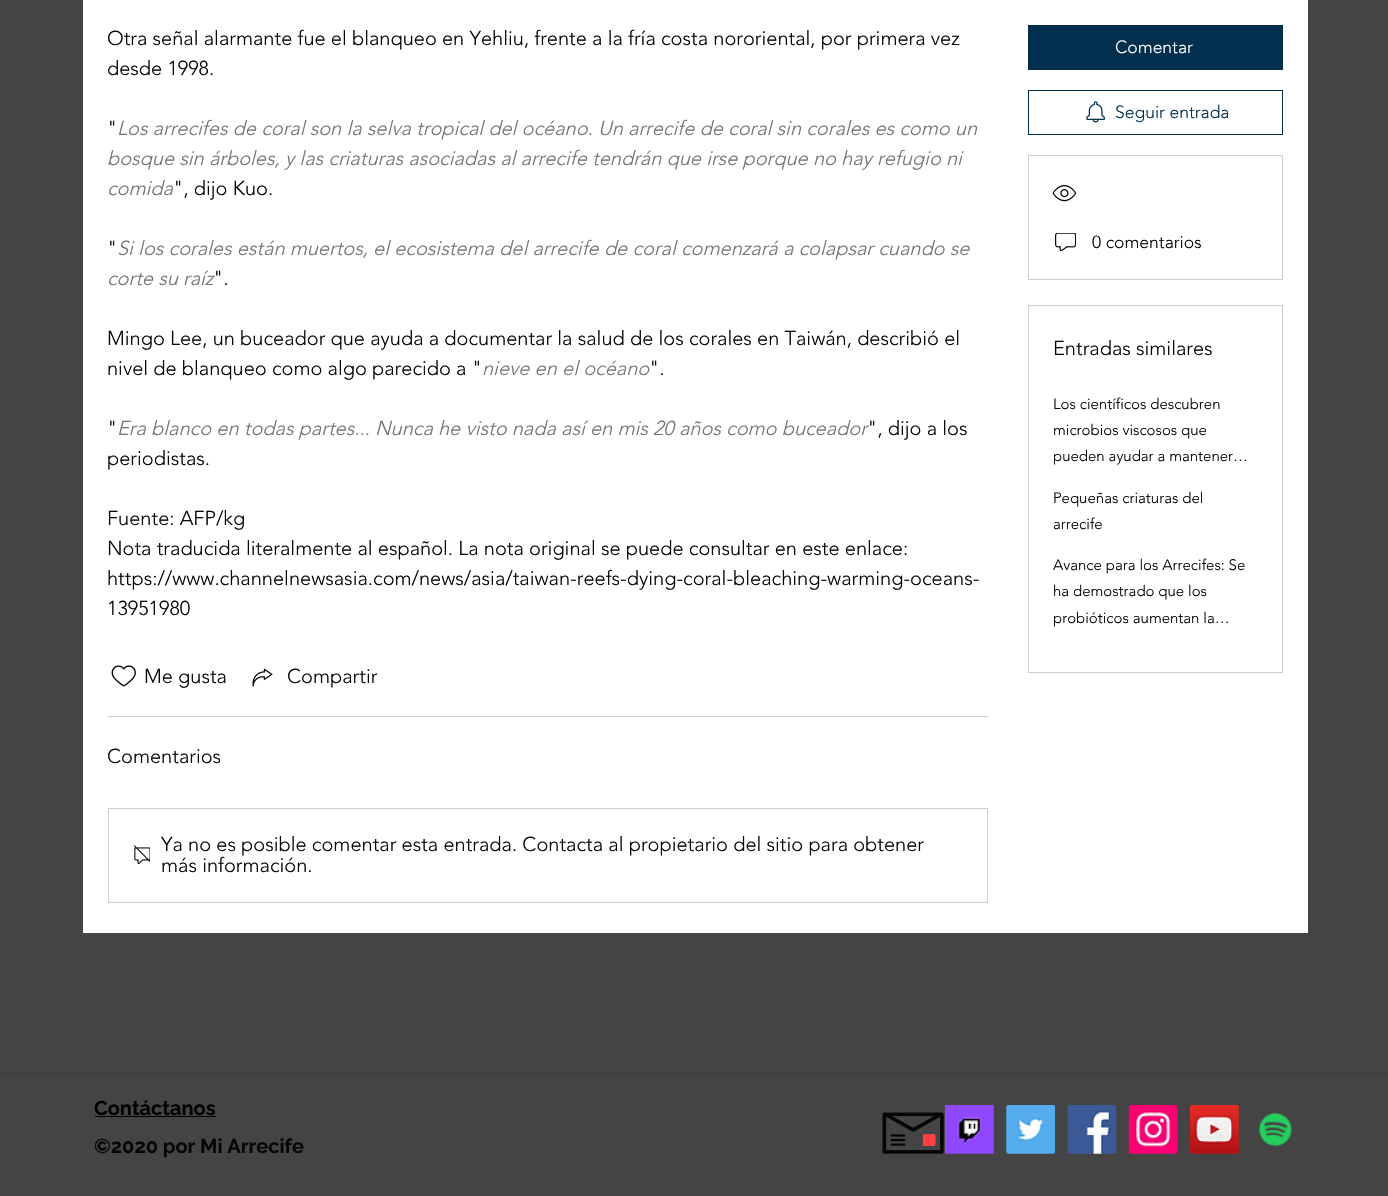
#include "include/core/SkBlurTypes.h"
#include "include/core/SkCanvas.h"
#include "include/core/SkData.h"
#include "include/core/SkFont.h"
#include "include/core/SkFontMgr.h"
#include "include/core/SkImage.h"
#include "include/core/SkMaskFilter.h"
#include "include/core/SkPaint.h"
#include "include/core/SkPathBuilder.h"
#include "include/core/SkTextBlob.h"
#include "include/effects/SkDashPathEffect.h"
#include "include/effects/SkGradientShader.h"
#include "include/utils/SkParsePath.h"

extern sk_sp<SkFontMgr> fontMgr;

void draw(SkCanvas* canvas) {
  SkPaint p;
  p.setAntiAlias(true);
  canvas->clear(SkColorSetRGB(68, 68, 68));
  p.setColor(SK_ColorWHITE);
  canvas->drawRect(SkRect::MakeLTRB(83, 0, 1308, 933), p);
  canvas->drawImageRect(SkImages::DeferredFromEncodedData(SkData::MakeFromFileName("images/1.png")), SkRect::MakeLTRB(111, 665, 136, 687), SkSamplingOptions());
  canvas->drawImageRect(SkImages::DeferredFromEncodedData(SkData::MakeFromFileName("images/2.png")), SkRect::MakeLTRB(252, 668, 273, 687), SkSamplingOptions());
  p.setColor(SkColorSetRGB(205, 205, 205));
  canvas->drawRect(SkRect::MakeLTRB(108, 716, 988, 717), p);
  p.setStyle(SkPaint::kStroke_Style);
  p.setStrokeWidth(1);
  canvas->drawRect(SkRect::MakeLTRB(108.5f, 808.5f, 987.5f, 902.5f), p);
  canvas->drawImageRect(SkImages::DeferredFromEncodedData(SkData::MakeFromFileName("images/3.png")), SkRect::MakeLTRB(134, 845, 150, 865), SkSamplingOptions());
  p.setStyle(SkPaint::kFill_Style);
  p.setColor(SkColorSetRGB(2, 47, 77));
  canvas->drawRect(SkRect::MakeLTRB(1028, 25, 1283, 70), p);
  p.setStyle(SkPaint::kStroke_Style);
  canvas->drawRect(SkRect::MakeLTRB(1028.5f, 90.5f, 1282.5f, 134.5f), p);
  canvas->drawImageRect(SkImages::DeferredFromEncodedData(SkData::MakeFromFileName("images/4.png")), SkRect::MakeLTRB(1086, 101, 1105, 123), SkSamplingOptions());
  p.setColor(SkColorSetRGB(205, 205, 205));
  canvas->drawRect(SkRect::MakeLTRB(1028.5f, 155.5f, 1282.5f, 279.5f), p);
  canvas->drawImageRect(SkImages::DeferredFromEncodedData(SkData::MakeFromFileName("images/5.png")), SkRect::MakeLTRB(1052, 185, 1077, 202), SkSamplingOptions());
  canvas->drawImageRect(SkImages::DeferredFromEncodedData(SkData::MakeFromFileName("images/6.png")), SkRect::MakeLTRB(1055, 233, 1076, 251), SkSamplingOptions());
  canvas->drawRect(SkRect::MakeLTRB(1028.5f, 305.5f, 1282.5f, 672.5f), p);
  p.setStyle(SkPaint::kFill_Style);
  p.setColor(SkColorSetRGB(59, 59, 59));
  canvas->drawRect(SkRect::MakeLTRB(0, 1073, 1388, 1074), p);
  p.setColor(SK_ColorBLACK);
  canvas->drawRect(SkRect::MakeLTRB(95, 1116, 216, 1117), p);
  canvas->drawImageRect(SkImages::DeferredFromEncodedData(SkData::MakeFromFileName("images/7.png")), SkRect::MakeLTRB(882, 1112, 944, 1154), SkSamplingOptions());
  canvas->drawImageRect(SkImages::DeferredFromEncodedData(SkData::MakeFromFileName("images/8.png")), SkRect::MakeLTRB(945, 1105, 994, 1154), SkSamplingOptions());
  canvas->drawImageRect(SkImages::DeferredFromEncodedData(SkData::MakeFromFileName("images/9.png")), SkRect::MakeLTRB(1006, 1105, 1055, 1154), SkSamplingOptions());
  canvas->drawImageRect(SkImages::DeferredFromEncodedData(SkData::MakeFromFileName("images/10.png")), SkRect::MakeLTRB(1067, 1105, 1117, 1154), SkSamplingOptions());
  canvas->drawImageRect(SkImages::DeferredFromEncodedData(SkData::MakeFromFileName("images/11.png")), SkRect::MakeLTRB(1128, 1105, 1178, 1154), SkSamplingOptions());
  canvas->drawImageRect(SkImages::DeferredFromEncodedData(SkData::MakeFromFileName("images/12.png")), SkRect::MakeLTRB(1190, 1105, 1239, 1154), SkSamplingOptions());
  canvas->drawImageRect(SkImages::DeferredFromEncodedData(SkData::MakeFromFileName("images/13.png")), SkRect::MakeLTRB(1258, 1112, 1292, 1147), SkSamplingOptions());
  SkFont font1(fontMgr->matchFamilyStyle("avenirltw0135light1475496", SkFontStyle(300, SkFontStyle::kNormal_Width, SkFontStyle::kUpright_Slant)), 20);
  font1.setSubpixel(true);
  p.setColor(SkColorSetRGB(6, 6, 6));
  canvas->drawString("Otra señal alarmante fue el blanqueo en Yehliu, frente a la fría costa nororiental, por primera vez", 107, 45, font1, p);
  canvas->drawString("desde 1998.", 107, 75, font1, p);
  canvas->drawString("\"", 107, 135, font1, p);
  SkFont font2(fontMgr->matchFamilyStyle("avenirltw0135light1475496", SkFontStyle(300, SkFontStyle::kNormal_Width, SkFontStyle::kItalic_Slant)), 20);
  font2.setSubpixel(true);
  p.setColor(SkColorSetRGB(116, 116, 116));
  canvas->drawString("Los arrecifes de coral son la selva tropical del océano. Un arrecife de coral sin corales es como un", 117, 135, font2, p);
  canvas->drawString("bosque sin árboles, y las criaturas asociadas al arrecife tendrán que irse porque no hay refugio ni", 107, 165, font2, p);
  canvas->drawString("comida", 107, 195, font2, p);
  p.setColor(SkColorSetRGB(6, 6, 6));
  canvas->drawString("\", dijo Kuo.", 173, 195, font1, p);
  canvas->drawString("\"", 107, 255, font1, p);
  p.setColor(SkColorSetRGB(116, 116, 116));
  canvas->drawString("Si los corales están muertos, el ecosistema del arrecife de coral comenzará a colapsar cuando se", 117, 255, font2, p);
  canvas->drawString("corte su raíz", 107, 285, font2, p);
  p.setColor(SkColorSetRGB(6, 6, 6));
  canvas->drawString("\".", 213, 285, font1, p);
  canvas->drawString("Mingo Lee, un buceador que ayuda a documentar la salud de los corales en Taiwán, describió el", 107, 345, font1, p);
  canvas->drawString("nivel de blanqueo como algo parecido a \"", 107, 375, font1, p);
  p.setColor(SkColorSetRGB(116, 116, 116));
  canvas->drawString("nieve en el océano", 482, 375, font2, p);
  p.setColor(SkColorSetRGB(6, 6, 6));
  canvas->drawString("\".", 649, 375, font1, p);
  canvas->drawString("\"", 107, 435, font1, p);
  p.setColor(SkColorSetRGB(116, 116, 116));
  canvas->drawString("Era blanco en todas partes... Nunca he visto nada así en mis 20 años como buceador", 117, 435, font2, p);
  p.setColor(SkColorSetRGB(6, 6, 6));
  canvas->drawString("\", dijo a los", 867, 435, font1, p);
  canvas->drawString("periodistas.", 107, 465, font1, p);
  canvas->drawString("Fuente: AFP/kg", 107, 525, font1, p);
  canvas->drawString("Nota traducida literalmente al español. La nota original se puede consultar en este enlace:", 107, 555, font1, p);
  canvas->drawString("https://www.channelnewsasia.com/news/asia/taiwan-reefs-dying-coral-bleaching-warming-oceans-", 107, 585, font1, p);
  canvas->drawString("13951980", 107, 615, font1, p);
  canvas->drawString("Me gusta", 144, 683, font1, p);
  canvas->drawString("Compartir", 287, 683, font1, p);
  canvas->drawString("Comentarios", 107, 763, font1, p);
  canvas->drawString("Ya no es posible comentar esta entrada. Contacta al propietario del sitio para obtener", 161, 851, font1, p);
  canvas->drawString("más información.", 161, 872, font1, p);
  SkFont font3(fontMgr->matchFamilyStyle("avenirltw0135light1475496", SkFontStyle(300, SkFontStyle::kNormal_Width, SkFontStyle::kUpright_Slant)), 17.5f);
  font3.setSubpixel(true);
  p.setColor(SK_ColorWHITE);
  canvas->drawString("Comentar", 1115, 53, font3, p);
  p.setColor(SkColorSetRGB(2, 47, 77));
  canvas->drawString("Seguir entrada", 1115, 118, font3, p);
  p.setColor(SkColorSetRGB(6, 6, 6));
  canvas->drawString("0 comentarios", 1092, 248, font3, p);
  canvas->drawString("Entradas similares", 1053, 355, font1, p);
  SkFont font4(fontMgr->matchFamilyStyle("avenirltw0135light1475496", SkFontStyle(300, SkFontStyle::kNormal_Width, SkFontStyle::kUpright_Slant)), 15);
  font4.setSubpixel(true);
  canvas->drawString("Los científicos descubren", 1053, 409, font4, p);
  canvas->drawString("microbios viscosos que", 1053, 435, font4, p);
  canvas->drawString("pueden ayudar a mantener…", 1053, 461, font4, p);
  canvas->drawString("Pequeñas criaturas del", 1053, 503, font4, p);
  canvas->drawString("arrecife", 1053, 529, font4, p);
  canvas->drawString("Avance para los Arrecifes: Se", 1053, 570, font4, p);
  canvas->drawString("ha demostrado que los", 1053, 596, font4, p);
  canvas->drawString("probióticos aumentan la…", 1053, 623, font4, p);
  SkFont font5(fontMgr->matchFamilyStyle("Raleway", SkFontStyle::Bold()), 20);
  font5.setSubpixel(true);
  p.setColor(SK_ColorBLACK);
  canvas->drawString("Contáctanos", 94, 1115, font5, p);
  p.setColor(SkColorSetRGB(6, 6, 6));
  canvas->drawString("©2020 por Mi Arrecife", 94, 1153, font5, p);
}
